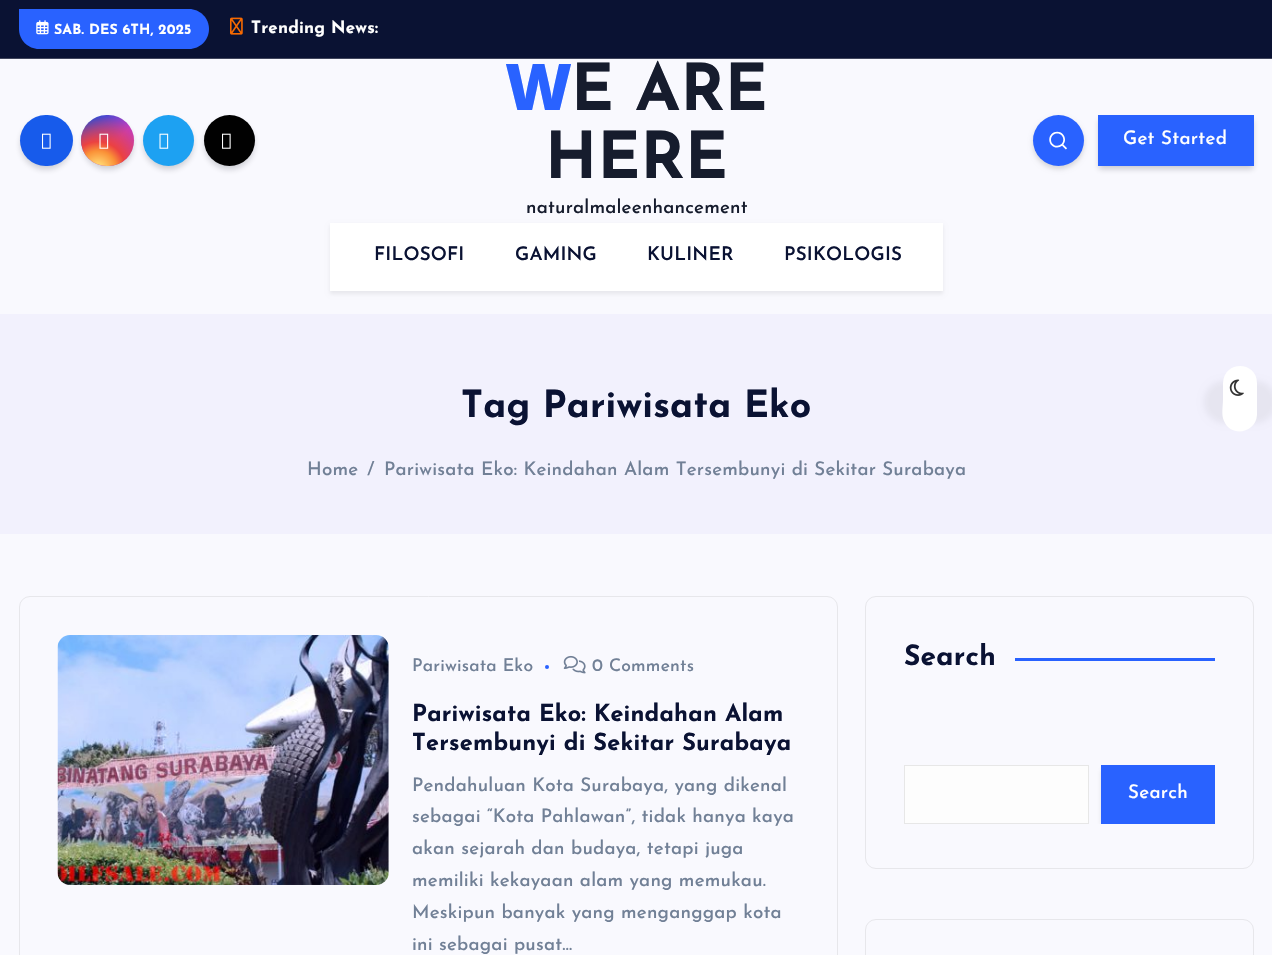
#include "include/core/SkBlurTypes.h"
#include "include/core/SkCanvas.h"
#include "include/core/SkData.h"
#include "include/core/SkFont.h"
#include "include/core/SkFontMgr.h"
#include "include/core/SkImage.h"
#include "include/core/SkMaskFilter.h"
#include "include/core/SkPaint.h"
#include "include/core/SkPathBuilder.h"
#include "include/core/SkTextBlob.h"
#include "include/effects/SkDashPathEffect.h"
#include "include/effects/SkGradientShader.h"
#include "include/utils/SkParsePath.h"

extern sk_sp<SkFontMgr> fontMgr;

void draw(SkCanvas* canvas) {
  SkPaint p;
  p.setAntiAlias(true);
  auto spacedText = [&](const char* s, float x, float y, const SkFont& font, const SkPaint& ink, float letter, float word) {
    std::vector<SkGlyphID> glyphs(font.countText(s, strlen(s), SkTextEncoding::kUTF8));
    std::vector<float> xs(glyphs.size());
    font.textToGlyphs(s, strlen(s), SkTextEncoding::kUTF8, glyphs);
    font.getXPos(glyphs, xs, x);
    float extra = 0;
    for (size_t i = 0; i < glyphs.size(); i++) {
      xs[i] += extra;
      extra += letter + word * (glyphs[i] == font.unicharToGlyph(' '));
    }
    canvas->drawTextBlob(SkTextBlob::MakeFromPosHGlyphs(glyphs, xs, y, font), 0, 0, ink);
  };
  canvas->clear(SkColorSetRGB(249, 249, 254));
  p.setColor(SkColorSetRGB(10, 18, 51));
  canvas->drawRect(SkRect::MakeLTRB(0, 0, 1272, 58), p);
  p.setColor(SkColorSetRGB(64, 69, 92));
  canvas->drawRect(SkRect::MakeLTRB(0, 58, 1272, 59), p);
  p.setColor(SkColorSetRGB(41, 98, 255));
  canvas->drawPath(SkPathBuilder().moveTo(19, 9).lineTo(189, 9).cubicTo(200, 9, 209, 18, 209, 29).cubicTo(209, 40, 200, 49, 189, 49).lineTo(39, 49).cubicTo(28, 49, 19, 40, 19, 29).close().detach(), p);
  canvas->drawImageRect(SkImages::DeferredFromEncodedData(SkData::MakeFromFileName("images/1.png")), SkRect::MakeLTRB(36, 20, 49, 35), SkSamplingOptions());
  canvas->drawImageRect(SkImages::DeferredFromEncodedData(SkData::MakeFromFileName("images/2.png")), SkRect::MakeLTRB(230, 17, 243, 35), SkSamplingOptions());
  p.setColor(SkColorSetARGB(51, 7, 10, 25));
  p.setMaskFilter(SkMaskFilter::MakeBlur(kNormal_SkBlurStyle, 3));
  canvas->drawRoundRect(SkRect::MakeLTRB(21, 120, 71, 169), 24.5f, 24.5f, p);
  p.setMaskFilter(nullptr);
  p.setColor(SkColorSetRGB(23, 91, 235));
  canvas->drawRoundRect(SkRect::MakeLTRB(20, 115, 73, 166), 25.5f, 25.5f, p);
  canvas->drawImageRect(SkImages::DeferredFromEncodedData(SkData::MakeFromFileName("images/3.png")), SkRect::MakeLTRB(42, 133, 51, 149), SkSamplingOptions());
  p.setColor(SkColorSetARGB(51, 7, 10, 25));
  p.setMaskFilter(SkMaskFilter::MakeBlur(kNormal_SkBlurStyle, 3));
  canvas->drawRoundRect(SkRect::MakeLTRB(83, 120, 133, 169), 24.5f, 24.5f, p);
  p.setMaskFilter(nullptr);
  {
    const SkColor colors[] = {SkColorSetRGB(35, 75, 215), SkColorSetRGB(195, 60, 190)};
    const float stops[] = {0.12f, 0.58f};
    const SkPoint ends[] = {{82, 115}, {133, 167}};
    p.setShader(SkGradientShader::MakeLinear(ends, colors, stops, 2, SkTileMode::kClamp));
    p.setAlpha(255);
  }
  canvas->drawRoundRect(SkRect::MakeLTRB(81, 115, 134, 166), 25.5f, 25.5f, p);
  {
    const SkColor colors[] = {SkColorSetRGB(255, 225, 125), SkColorSetRGB(255, 205, 105), SkColorSetRGB(250, 145, 55), SkColorSetRGB(235, 65, 65), SkColorSetARGB(0, 235, 65, 65)};
    const float stops[] = {0, 0.1f, 0.28f, 0.42f, 0.82f};
    p.setShader(SkGradientShader::MakeRadial({98, 169}, 65, colors, stops, 5, SkTileMode::kClamp));
    p.setAlpha(255);
  }
  canvas->drawRoundRect(SkRect::MakeLTRB(81, 115, 134, 166), 25.5f, 25.5f, p);
  canvas->drawImageRect(SkImages::DeferredFromEncodedData(SkData::MakeFromFileName("images/4.png")), SkRect::MakeLTRB(99, 133, 109, 149), SkSamplingOptions());
  p.setShader(nullptr);
  p.setColor(SkColorSetARGB(51, 7, 10, 25));
  p.setMaskFilter(SkMaskFilter::MakeBlur(kNormal_SkBlurStyle, 3));
  canvas->drawRoundRect(SkRect::MakeLTRB(144, 120, 193, 169), 24.5f, 24.5f, p);
  p.setMaskFilter(nullptr);
  p.setColor(SkColorSetRGB(29, 161, 242));
  canvas->drawCircle(168.5f, 140.5f, 25.5f, p);
  canvas->drawImageRect(SkImages::DeferredFromEncodedData(SkData::MakeFromFileName("images/5.png")), SkRect::MakeLTRB(159, 133, 169, 149), SkSamplingOptions());
  p.setColor(SkColorSetARGB(51, 7, 10, 25));
  p.setMaskFilter(SkMaskFilter::MakeBlur(kNormal_SkBlurStyle, 3));
  canvas->drawRoundRect(SkRect::MakeLTRB(205, 120, 254, 169), 24.5f, 24.5f, p);
  p.setMaskFilter(nullptr);
  p.setColor(SkColorSetRGB(1, 1, 1));
  canvas->drawCircle(229.5f, 140.5f, 25.5f, p);
  canvas->drawImageRect(SkImages::DeferredFromEncodedData(SkData::MakeFromFileName("images/6.png")), SkRect::MakeLTRB(222, 133, 231, 149), SkSamplingOptions());
  p.setColor(SkColorSetARGB(38, 0, 0, 0));
  p.setMaskFilter(SkMaskFilter::MakeBlur(kNormal_SkBlurStyle, 2.5f));
  canvas->drawRoundRect(SkRect::MakeLTRB(1033, 118, 1084, 169), 25.5f, 25.5f, p);
  p.setMaskFilter(nullptr);
  p.setColor(SkColorSetRGB(41, 98, 255));
  canvas->drawCircle(1058.5f, 140.5f, 25.5f, p);
  canvas->drawImageRect(SkImages::DeferredFromEncodedData(SkData::MakeFromFileName("images/7.png")), SkRect::MakeLTRB(1049, 131, 1067, 150), SkSamplingOptions());
  p.setColor(SkColorSetARGB(51, 7, 10, 25));
  p.setMaskFilter(SkMaskFilter::MakeBlur(kNormal_SkBlurStyle, 3));
  canvas->drawRect(SkRect::MakeLTRB(1099, 120, 1253, 169), p);
  p.setMaskFilter(nullptr);
  p.setColor(SkColorSetRGB(41, 98, 255));
  canvas->drawRect(SkRect::MakeLTRB(1098, 115, 1254, 166), p);
  p.setColor(SkColorSetARGB(18, 0, 0, 0));
  p.setMaskFilter(SkMaskFilter::MakeBlur(kNormal_SkBlurStyle, 2));
  canvas->drawRect(SkRect::MakeLTRB(330, 225, 943, 294), p);
  p.setMaskFilter(nullptr);
  p.setColor(SK_ColorWHITE);
  canvas->drawRect(SkRect::MakeLTRB(330, 223, 943, 291), p);
  p.setColor(SkColorSetRGB(242, 241, 253));
  canvas->drawRect(SkRect::MakeLTRB(0, 314, 1272, 534), p);
  p.setStyle(SkPaint::kStroke_Style);
  p.setStrokeWidth(1);
  p.setColor(SkColorSetRGB(231, 231, 235));
  canvas->drawRoundRect(SkRect::MakeLTRB(19.5f, 596.5f, 837.5f, 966.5f), 10.5f, 10.5f, p);
  canvas->drawImageRect(SkImages::DeferredFromEncodedData(SkData::MakeFromFileName("images/8.png")), SkRect::MakeLTRB(57, 635, 389, 885), SkSamplingOptions());
  p.setStyle(SkPaint::kFill_Style);
  p.setColor(SkColorSetRGB(41, 98, 255));
  canvas->drawCircle(547, 667, 2, p);
  canvas->drawImageRect(SkImages::DeferredFromEncodedData(SkData::MakeFromFileName("images/9.png")), SkRect::MakeLTRB(563, 655, 586, 674), SkSamplingOptions());
  p.setStyle(SkPaint::kStroke_Style);
  p.setColor(SkColorSetRGB(231, 231, 235));
  canvas->drawRoundRect(SkRect::MakeLTRB(865.5f, 596.5f, 1253.5f, 868.5f), 10.5f, 10.5f, p);
  p.setStyle(SkPaint::kFill_Style);
  p.setColor(SkColorSetRGB(41, 98, 255));
  canvas->drawRect(SkRect::MakeLTRB(1015, 658, 1215, 661), p);
  p.setColor(SkColorSetRGB(253, 253, 253));
  canvas->drawRect(SkRect::MakeLTRB(904.5f, 765.5f, 1088.5f, 823.5f), p);
  p.setStyle(SkPaint::kStroke_Style);
  p.setColor(SkColorSetRGB(231, 231, 231));
  canvas->drawRect(SkRect::MakeLTRB(904.5f, 765.5f, 1088.5f, 823.5f), p);
  canvas->save();
  canvas->clipRect(SkRect::MakeLTRB(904, 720, 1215, 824));
  p.setStyle(SkPaint::kFill_Style);
  p.setColor(SkColorSetARGB(51, 7, 10, 25));
  p.setMaskFilter(SkMaskFilter::MakeBlur(kNormal_SkBlurStyle, 3));
  canvas->drawRect(SkRect::MakeLTRB(1103, 770, 1214, 826), p);
  p.setMaskFilter(nullptr);
  canvas->restore();
  p.setColor(SkColorSetRGB(41, 98, 255));
  canvas->drawRect(SkRect::MakeLTRB(1101, 765, 1215, 824), p);
  p.setStyle(SkPaint::kStroke_Style);
  p.setColor(SkColorSetRGB(231, 231, 235));
  canvas->drawRoundRect(SkRect::MakeLTRB(865.5f, 919.5f, 1253.5f, 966.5f), 10.5f, 10.5f, p);
  p.setStyle(SkPaint::kFill_Style);
  p.setColor(SkColorSetARGB(13, 0, 0, 0));
  p.setMaskFilter(SkMaskFilter::MakeBlur(kNormal_SkBlurStyle, 3));
  canvas->drawRoundRect(SkRect::MakeLTRB(1204, 381, 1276, 423), 21, 21, p);
  p.setMaskFilter(nullptr);
  p.setColor(SK_ColorWHITE);
  canvas->drawPath(SkPathBuilder().moveTo(1257, 383).lineTo(1257, 415).cubicTo(1256, 433, 1231, 438, 1224, 421).cubicTo(1221, 415, 1223, 406, 1223, 399).lineTo(1223, 383).cubicTo(1224, 360, 1257, 361, 1257, 383).close().detach(), p);
  canvas->drawImageRect(SkImages::DeferredFromEncodedData(SkData::MakeFromFileName("images/10.png")), SkRect::MakeLTRB(1229, 379, 1244, 396), SkSamplingOptions());
  SkFont font1(fontMgr->matchFamilyStyle("Josefin Sans", SkFontStyle::Bold()), 14);
  font1.setSubpixel(true);
  spacedText("SAB. DES 6TH, 2025", 54, 34, font1, p, 0.2f, 0);
  SkFont font2(fontMgr->matchFamilyStyle("Josefin Sans", SkFontStyle::Bold()), 17);
  font2.setSubpixel(true);
  spacedText("Trending News:", 251, 33, font2, p, 0.2f, 0);
  SkFont font3(fontMgr->matchFamilyStyle("Noto Sans", SkFontStyle(900, SkFontStyle::kNormal_Width, SkFontStyle::kUpright_Slant)), 64.5f);
  font3.setSubpixel(true);
  p.setColor(SkColorSetRGB(41, 98, 255));
  spacedText("W", 505, 110, font3, p, 0.2f, 0);
  SkFont font4(fontMgr->matchFamilyStyle("Josefin Sans", SkFontStyle::Bold()), 64.5f);
  font4.setSubpixel(true);
  p.setColor(SkColorSetRGB(22, 28, 45));
  spacedText("E ARE", 571, 110, font4, p, 0.2f, 0);
  spacedText("HERE", 545, 178, font4, p, 0.2f, 0);
  SkFont font5(fontMgr->matchFamilyStyle("Josefin Sans", SkFontStyle(500, SkFontStyle::kNormal_Width, SkFontStyle::kUpright_Slant)), 18.75f);
  font5.setSubpixel(true);
  spacedText("naturalmaleenhancement", 526, 213, font5, p, 0.2f, 0);
  p.setColor(SK_ColorWHITE);
  spacedText("Get Started", 1123, 144, font5, p, 0.3f, 0);
  SkFont font6(fontMgr->matchFamilyStyle("Josefin Sans", SkFontStyle(600, SkFontStyle::kNormal_Width, SkFontStyle::kUpright_Slant)), 18.75f);
  font6.setSubpixel(true);
  p.setColor(SkColorSetRGB(10, 18, 51));
  spacedText("FILOSOFI", 374, 260, font6, p, 0.2f, 0);
  spacedText("GAMING", 515, 260, font6, p, 0.2f, 0);
  spacedText("KULINER", 647, 260, font6, p, 0.2f, 0);
  spacedText("PSIKOLOGIS", 784, 260, font6, p, 0.2f, 0);
  SkFont font7(fontMgr->matchFamilyStyle("Josefin Sans", SkFontStyle::Bold()), 37.5f);
  font7.setSubpixel(true);
  spacedText("Tag Pariwisata Eko", 461, 417, font7, p, 0.2f, 0);
  p.setColor(SkColorSetRGB(113, 128, 150));
  spacedText("Home", 307, 475, font5, p, 0.2f, 0);
  spacedText("/", 367, 475, font5, p, 0.2f, 0);
  spacedText("Pariwisata Eko: Keindahan Alam Tersembunyi di Sekitar Surabaya", 384, 475, font5, p, 0.2f, 0);
  SkFont font8(fontMgr->matchFamilyStyle("Josefin Sans", SkFontStyle(500, SkFontStyle::kNormal_Width, SkFontStyle::kUpright_Slant)), 17.5f);
  font8.setSubpixel(true);
  spacedText("Pariwisata Eko", 412, 671, font8, p, 0.2f, 0);
  spacedText("0 Comments", 592, 671, font8, p, 0.2f, 0);
  SkFont font9(fontMgr->matchFamilyStyle("Josefin Sans", SkFontStyle::Bold()), 23.5f);
  font9.setSubpixel(true);
  p.setColor(SkColorSetRGB(10, 18, 51));
  spacedText("Pariwisata Eko: Keindahan Alam", 412, 721, font9, p, 0.2f, 0);
  spacedText("Tersembunyi di Sekitar Surabaya", 412, 750, font9, p, 0.2f, 0);
  p.setColor(SkColorSetRGB(113, 128, 150));
  spacedText("Pendahuluan Kota Surabaya, yang dikenal", 412, 791, font5, p, 0.2f, 0);
  spacedText("sebagai “Kota Pahlawan”, tidak hanya kaya", 412, 822, font5, p, 0.2f, 0);
  spacedText("akan sejarah dan budaya, tetapi juga", 412, 854, font5, p, 0.2f, 0);
  spacedText("memiliki kekayaan alam yang memukau.", 412, 886, font5, p, 0.2f, 0);
  spacedText("Meskipun banyak yang menganggap kota", 412, 918, font5, p, 0.2f, 0);
  spacedText("ini sebagai pusat…", 412, 950, font5, p, 0.2f, 0);
  SkFont font10(fontMgr->matchFamilyStyle("Josefin Sans", SkFontStyle::Bold()), 28);
  font10.setSubpixel(true);
  p.setColor(SkColorSetRGB(10, 18, 51));
  spacedText("Search", 904, 665, font10, p, 0.25f, 0);
  p.setColor(SK_ColorWHITE);
  spacedText("Search", 1128, 798, font5, p, 0.3f, 0);
}
